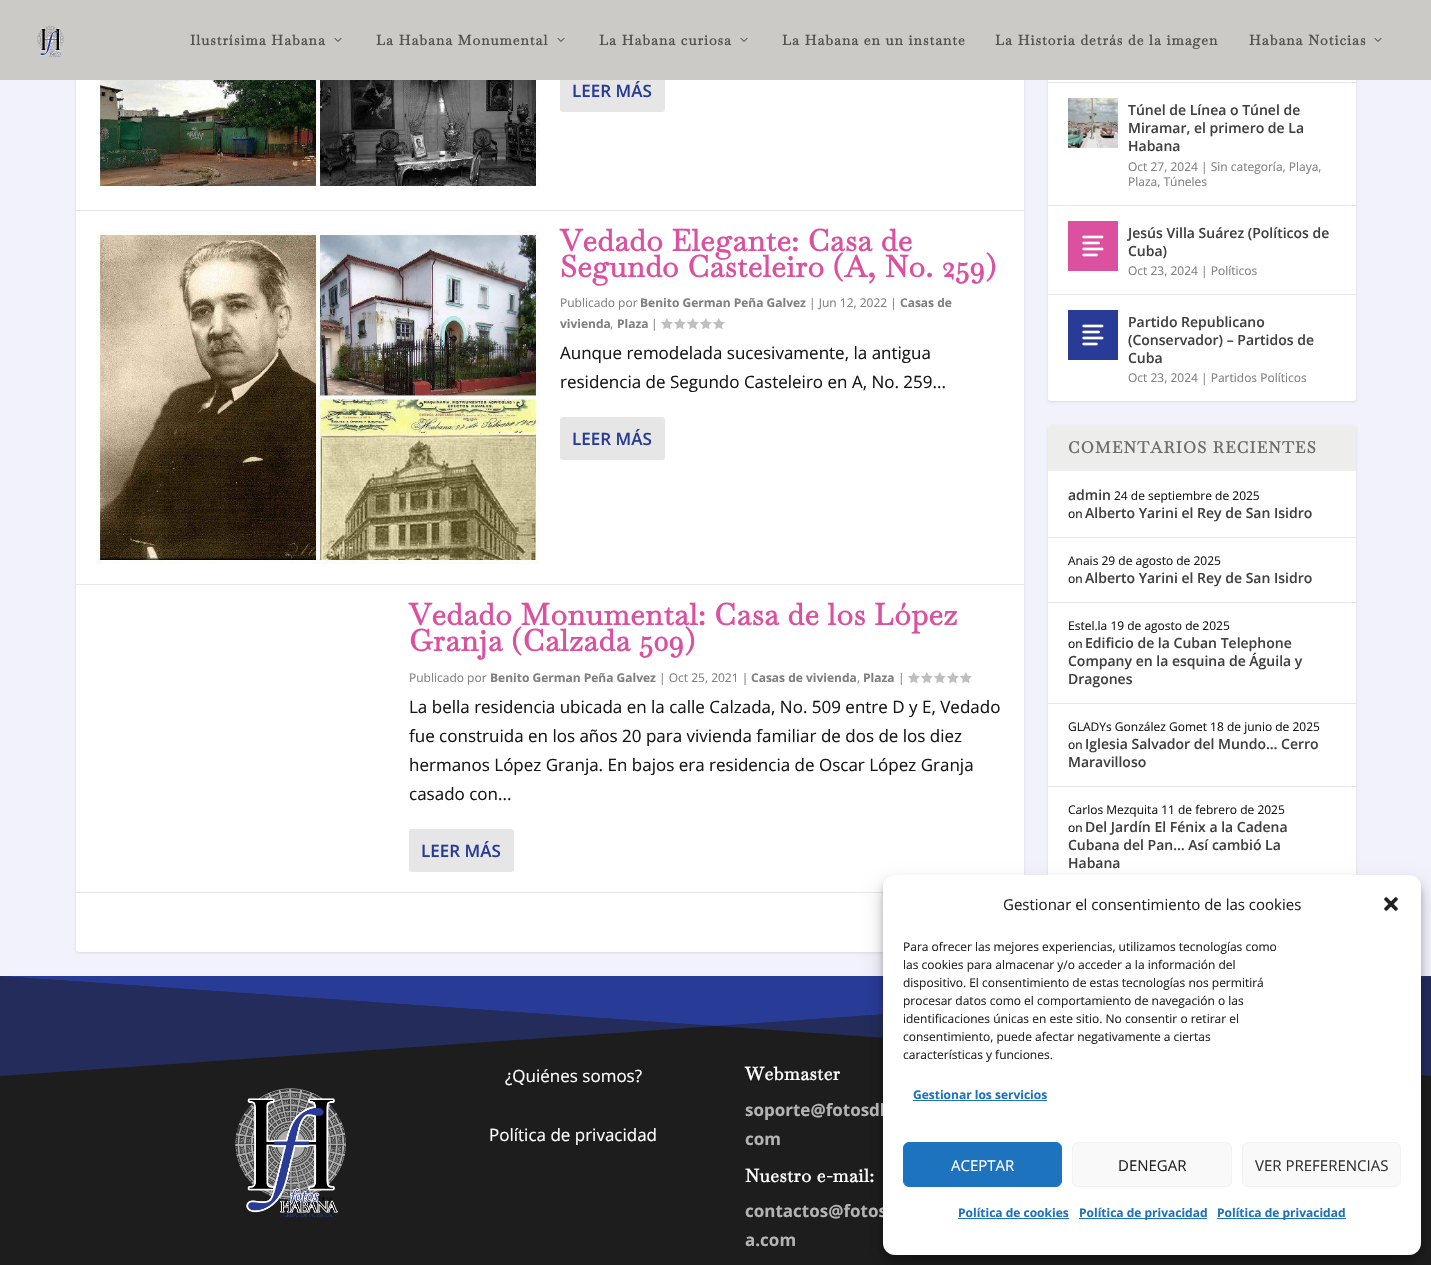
#include "include/core/SkBlurTypes.h"
#include "include/core/SkCanvas.h"
#include "include/core/SkData.h"
#include "include/core/SkFont.h"
#include "include/core/SkFontMgr.h"
#include "include/core/SkImage.h"
#include "include/core/SkMaskFilter.h"
#include "include/core/SkPaint.h"
#include "include/core/SkPathBuilder.h"
#include "include/core/SkTextBlob.h"
#include "include/effects/SkDashPathEffect.h"
#include "include/effects/SkGradientShader.h"
#include "include/utils/SkParsePath.h"

extern sk_sp<SkFontMgr> fontMgr;

void draw(SkCanvas* canvas) {
  SkPaint p;
  p.setAntiAlias(true);
  auto spacedText = [&](const char* s, float x, float y, const SkFont& font, const SkPaint& ink, float letter, float word) {
    std::vector<SkGlyphID> glyphs(font.countText(s, strlen(s), SkTextEncoding::kUTF8));
    std::vector<float> xs(glyphs.size());
    font.textToGlyphs(s, strlen(s), SkTextEncoding::kUTF8, glyphs);
    font.getXPos(glyphs, xs, x);
    float extra = 0;
    for (size_t i = 0; i < glyphs.size(); i++) {
      xs[i] += extra;
      extra += letter + word * (glyphs[i] == font.unicharToGlyph(' '));
    }
    canvas->drawTextBlob(SkTextBlob::MakeFromPosHGlyphs(glyphs, xs, y, font), 0, 0, ink);
  };
  canvas->clear(SkColorSetRGB(242, 242, 252));
  p.setColor(SkColorSetARGB(26, 0, 0, 0));
  p.setMaskFilter(SkMaskFilter::MakeBlur(kNormal_SkBlurStyle, 1.5f));
  canvas->drawRoundRect(SkRect::MakeLTRB(76, -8, 1024, 953), 3, 3, p);
  p.setMaskFilter(nullptr);
  p.setColor(SK_ColorWHITE);
  canvas->drawRoundRect(SkRect::MakeLTRB(76, -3, 1024, 952), 3, 3, p);
  p.setColor(SkColorSetRGB(230, 230, 230));
  canvas->drawRoundRect(SkRect::MakeLTRB(560, 69, 665, 112), 3, 3, p);
  p.setColor(SkColorSetARGB(26, 0, 0, 0));
  p.setMaskFilter(SkMaskFilter::MakeBlur(kNormal_SkBlurStyle, 1.5f));
  canvas->drawRoundRect(SkRect::MakeLTRB(1048, -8, 1356, 402), 3, 3, p);
  p.setMaskFilter(nullptr);
  p.setColor(SK_ColorWHITE);
  canvas->drawRoundRect(SkRect::MakeLTRB(1048, -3, 1356, 401), 3, 3, p);
  p.setColor(SkColorSetRGB(204, 202, 199));
  canvas->drawRect(SkRect::MakeLTRB(0, 0, 1431, 80), p);
  canvas->drawImageRect(SkImages::DeferredFromEncodedData(SkData::MakeFromFileName("images/1.png")), SkRect::MakeLTRB(37, 26, 64, 57), SkSamplingOptions());
  canvas->drawImageRect(SkImages::DeferredFromEncodedData(SkData::MakeFromFileName("images/2.png")), SkRect::MakeLTRB(334, 38, 342, 42), SkSamplingOptions());
  canvas->drawImageRect(SkImages::DeferredFromEncodedData(SkData::MakeFromFileName("images/2.png")), SkRect::MakeLTRB(557, 38, 565, 42), SkSamplingOptions());
  canvas->drawImageRect(SkImages::DeferredFromEncodedData(SkData::MakeFromFileName("images/2.png")), SkRect::MakeLTRB(740, 38, 748, 42), SkSamplingOptions());
  canvas->drawImageRect(SkImages::DeferredFromEncodedData(SkData::MakeFromFileName("images/2.png")), SkRect::MakeLTRB(1374, 38, 1382, 42), SkSamplingOptions());
  p.setColor(SkColorSetRGB(230, 230, 230));
  canvas->drawRect(SkRect::MakeLTRB(76, 210, 1024, 211), p);
  canvas->drawImageRect(SkImages::DeferredFromEncodedData(SkData::MakeFromFileName("images/3.png")), SkRect::MakeLTRB(96, 80, 540, 190), SkSamplingOptions());
  canvas->drawRect(SkRect::MakeLTRB(76, 584, 1024, 585), p);
  canvas->drawImageRect(SkImages::DeferredFromEncodedData(SkData::MakeFromFileName("images/4.png")), SkRect::MakeLTRB(96, 231, 540, 564), SkSamplingOptions());
  canvas->drawImageRect(SkImages::DeferredFromEncodedData(SkData::MakeFromFileName("images/5.png")), SkRect::MakeLTRB(661, 318, 673, 330), SkSamplingOptions());
  canvas->drawImageRect(SkImages::DeferredFromEncodedData(SkData::MakeFromFileName("images/5.png")), SkRect::MakeLTRB(674, 318, 686, 330), SkSamplingOptions());
  canvas->drawImageRect(SkImages::DeferredFromEncodedData(SkData::MakeFromFileName("images/5.png")), SkRect::MakeLTRB(687, 318, 699, 330), SkSamplingOptions());
  canvas->drawImageRect(SkImages::DeferredFromEncodedData(SkData::MakeFromFileName("images/5.png")), SkRect::MakeLTRB(700, 318, 712, 330), SkSamplingOptions());
  canvas->drawImageRect(SkImages::DeferredFromEncodedData(SkData::MakeFromFileName("images/5.png")), SkRect::MakeLTRB(713, 318, 725, 330), SkSamplingOptions());
  canvas->drawRoundRect(SkRect::MakeLTRB(560, 417, 665, 460), 3, 3, p);
  canvas->drawRect(SkRect::MakeLTRB(76, 892, 883, 893), p);
  canvas->drawImageRect(SkImages::DeferredFromEncodedData(SkData::MakeFromFileName("images/5.png")), SkRect::MakeLTRB(908, 672, 920, 684), SkSamplingOptions());
  canvas->drawImageRect(SkImages::DeferredFromEncodedData(SkData::MakeFromFileName("images/5.png")), SkRect::MakeLTRB(921, 672, 933, 684), SkSamplingOptions());
  canvas->drawImageRect(SkImages::DeferredFromEncodedData(SkData::MakeFromFileName("images/5.png")), SkRect::MakeLTRB(934, 672, 946, 684), SkSamplingOptions());
  canvas->drawImageRect(SkImages::DeferredFromEncodedData(SkData::MakeFromFileName("images/5.png")), SkRect::MakeLTRB(947, 672, 959, 684), SkSamplingOptions());
  canvas->drawImageRect(SkImages::DeferredFromEncodedData(SkData::MakeFromFileName("images/5.png")), SkRect::MakeLTRB(960, 672, 972, 684), SkSamplingOptions());
  canvas->drawRoundRect(SkRect::MakeLTRB(409, 829, 514, 872), 3, 3, p);
  canvas->drawRect(SkRect::MakeLTRB(1048, 82, 1356, 83), p);
  canvas->drawRect(SkRect::MakeLTRB(1048, 205, 1356, 206), p);
  canvas->drawImageRect(SkImages::DeferredFromEncodedData(SkData::MakeFromFileName("images/6.png")), SkRect::MakeLTRB(1068, 98, 1118, 148), SkSamplingOptions());
  canvas->drawRect(SkRect::MakeLTRB(1048, 294, 1356, 295), p);
  p.setColor(SkColorSetRGB(219, 80, 159));
  canvas->drawRect(SkRect::MakeLTRB(1068, 221, 1118, 271), p);
  canvas->drawImageRect(SkImages::DeferredFromEncodedData(SkData::MakeFromFileName("images/7.png")), SkRect::MakeLTRB(1082, 235, 1104, 257), SkSamplingOptions());
  p.setColor(SkColorSetRGB(40, 59, 151));
  canvas->drawRect(SkRect::MakeLTRB(1068, 310, 1118, 360), p);
  canvas->drawImageRect(SkImages::DeferredFromEncodedData(SkData::MakeFromFileName("images/8.png")), SkRect::MakeLTRB(1082, 324, 1104, 346), SkSamplingOptions());
  p.setColor(SkColorSetARGB(26, 0, 0, 0));
  p.setMaskFilter(SkMaskFilter::MakeBlur(kNormal_SkBlurStyle, 1.5f));
  canvas->drawRoundRect(SkRect::MakeLTRB(1048, 426, 1356, 889), 3, 3, p);
  p.setMaskFilter(nullptr);
  p.setColor(SK_ColorWHITE);
  canvas->drawRoundRect(SkRect::MakeLTRB(1048, 425, 1356, 888), 3, 3, p);
  p.setColor(SkColorSetRGB(237, 237, 235));
  canvas->drawPath(SkPathBuilder().moveTo(1051, 425).lineTo(1353, 425).cubicTo(1354.5f, 425, 1356, 426.5f, 1356, 428).lineTo(1356, 471).lineTo(1048, 471).lineTo(1048, 428).cubicTo(1048, 426.5f, 1049.5f, 425, 1051, 425).close().detach(), p);
  p.setColor(SkColorSetRGB(230, 230, 230));
  canvas->drawRect(SkRect::MakeLTRB(1048, 537, 1356, 538), p);
  canvas->drawRect(SkRect::MakeLTRB(1048, 602, 1356, 603), p);
  canvas->drawRect(SkRect::MakeLTRB(1048, 703, 1356, 704), p);
  canvas->drawRect(SkRect::MakeLTRB(1048, 786, 1356, 787), p);
  p.setColor(SkColorSetRGB(29, 29, 29));
  canvas->drawRect(SkRect::MakeLTRB(0, 976, 1431, 1265), p);
  p.setColor(SkColorSetRGB(35, 44, 90));
  canvas->drawPath(SkPathBuilder().moveTo(1431, 976).lineTo(716, 1026).lineTo(0, 976).lineTo(0, 1076).lineTo(716, 1026).lineTo(1431, 1076).close().detach(), p);
  p.setColor(SkColorSetRGB(40, 59, 151));
  canvas->drawPath(SkPathBuilder().moveTo(1431, 976).lineTo(0, 976).lineTo(716, 1026).close().detach(), p);
  canvas->drawImageRect(SkImages::DeferredFromEncodedData(SkData::MakeFromFileName("images/9.png")), SkRect::MakeLTRB(235, 1088, 346, 1217), SkSamplingOptions());
  p.setColor(SkColorSetARGB(59, 0, 0, 0));
  p.setMaskFilter(SkMaskFilter::MakeBlur(kNormal_SkBlurStyle, 3));
  canvas->drawRoundRect(SkRect::MakeLTRB(883, 881, 1421, 1261), 12, 12, p);
  p.setMaskFilter(nullptr);
  p.setColor(SkColorSetARGB(48, 0, 0, 0));
  p.setMaskFilter(SkMaskFilter::MakeBlur(kNormal_SkBlurStyle, 10));
  canvas->drawRoundRect(SkRect::MakeLTRB(883, 885, 1421, 1265), 12, 12, p);
  p.setMaskFilter(nullptr);
  SkFont font1(fontMgr->matchFamilyStyle("Baskervville", SkFontStyle::Bold()), 14);
  font1.setSubpixel(true);
  p.setColor(SkColorSetRGB(82, 81, 80));
  spacedText("Ilustrísima Habana", 190, 45, font1, p, 1, 0);
  spacedText("La Habana Monumental", 376, 45, font1, p, 1, 0);
  spacedText("La Habana curiosa", 599, 45, font1, p, 1, 0);
  spacedText("La Habana en un instante", 782, 45, font1, p, 1, 0);
  spacedText("La Historia detrás de la imagen", 995, 45, font1, p, 1, 0);
  spacedText("Habana Noticias", 1249, 45, font1, p, 1, 0);
  SkFont font2(fontMgr->matchFamilyStyle("Open Sans", SkFontStyle(600, SkFontStyle::kNormal_Width, SkFontStyle::kUpright_Slant)), 17);
  font2.setSubpixel(true);
  p.setColor(SkColorSetRGB(40, 59, 151));
  canvas->drawString("LEER MÁS", 572, 97, font2, p);
  SkFont font3(fontMgr->matchFamilyStyle("Baskervville", SkFontStyle::Bold()), 30);
  font3.setSubpixel(true);
  p.setColor(SkColorSetRGB(219, 80, 159));
  spacedText("Vedado Elegante: Casa de", 560, 251, font3, p, 0.5f, 0);
  spacedText("Segundo Casteleiro (A, No. 259)", 560, 277, font3, p, 0.5f, 0);
  SkFont font4(fontMgr->matchFamilyStyle("Open Sans", SkFontStyle::Normal()), 12);
  font4.setSubpixel(true);
  p.setColor(SkColorSetRGB(128, 128, 128));
  canvas->drawString("Publicado por", 560, 307, font4, p);
  SkFont font5(fontMgr->matchFamilyStyle("Open Sans", SkFontStyle::Bold()), 12);
  font5.setSubpixel(true);
  canvas->drawString("Benito German Peña Galvez", 640, 307, font5, p);
  canvas->drawString("| Jun 12, 2022 |", 809, 307, font4, p);
  canvas->drawString("Casas de", 900, 307, font5, p);
  canvas->drawString("vivienda", 560, 328, font5, p);
  canvas->drawString(",", 610, 328, font4, p);
  canvas->drawString("Plaza", 617, 328, font5, p);
  canvas->drawString("|", 651, 328, font4, p);
  SkFont font6(fontMgr->matchFamilyStyle("Open Sans", SkFontStyle::Normal()), 17);
  font6.setSubpixel(true);
  p.setColor(SkColorSetRGB(23, 23, 23));
  canvas->drawString("Aunque remodelada sucesivamente, la antigua", 560, 359, font6, p);
  canvas->drawString("residencia de Segundo Casteleiro en A, No. 259...", 560, 388, font6, p);
  p.setColor(SkColorSetRGB(40, 59, 151));
  canvas->drawString("LEER MÁS", 572, 445, font2, p);
  p.setColor(SkColorSetRGB(219, 80, 159));
  spacedText("Vedado Monumental: Casa de los López", 409, 625, font3, p, 0.5f, 0);
  spacedText("Granja (Calzada 509)", 409, 651, font3, p, 0.5f, 0);
  p.setColor(SkColorSetRGB(128, 128, 128));
  canvas->drawString("Publicado por", 409, 682, font4, p);
  canvas->drawString("Benito German Peña Galvez", 490, 682, font5, p);
  canvas->drawString("| Oct 25, 2021 |", 659, 682, font4, p);
  canvas->drawString("Casas de vivienda", 751, 682, font5, p);
  canvas->drawString(",", 857, 682, font4, p);
  canvas->drawString("Plaza", 863, 682, font5, p);
  canvas->drawString("|", 898, 682, font4, p);
  p.setColor(SkColorSetRGB(23, 23, 23));
  canvas->drawString("La bella residencia ubicada en la calle Calzada, No. 509 entre D y E, Vedado", 409, 713, font6, p);
  canvas->drawString("fue construida en los años 20 para vivienda familiar de dos de los diez", 409, 742, font6, p);
  canvas->drawString("hermanos López Granja. En bajos era residencia de Oscar López Granja", 409, 771, font6, p);
  canvas->drawString("casado con...", 409, 800, font6, p);
  p.setColor(SkColorSetRGB(40, 59, 151));
  canvas->drawString("LEER MÁS", 421, 857, font2, p);
  SkFont font7(fontMgr->matchFamilyStyle("Open Sans", SkFontStyle(600, SkFontStyle::kNormal_Width, SkFontStyle::kUpright_Slant)), 14);
  font7.setSubpixel(true);
  p.setColor(SkColorSetRGB(64, 64, 64));
  canvas->drawString("Túnel de Línea o Túnel de", 1128, 115, font7, p);
  canvas->drawString("Miramar, el primero de La", 1128, 133, font7, p);
  canvas->drawString("Habana", 1128, 151, font7, p);
  p.setColor(SkColorSetRGB(128, 128, 128));
  canvas->drawString("Oct 27, 2024 | Sin categoría, Playa,", 1128, 171, font4, p);
  canvas->drawString("Plaza, Túneles", 1128, 186, font4, p);
  p.setColor(SkColorSetRGB(64, 64, 64));
  canvas->drawString("Jesús Villa Suárez (Políticos de", 1128, 238, font7, p);
  canvas->drawString("Cuba)", 1128, 256, font7, p);
  p.setColor(SkColorSetRGB(128, 128, 128));
  canvas->drawString("Oct 23, 2024 | Políticos", 1128, 275, font4, p);
  p.setColor(SkColorSetRGB(64, 64, 64));
  canvas->drawString("Partido Republicano", 1128, 327, font7, p);
  canvas->drawString("(Conservador) – Partidos de", 1128, 345, font7, p);
  canvas->drawString("Cuba", 1128, 363, font7, p);
  p.setColor(SkColorSetRGB(128, 128, 128));
  canvas->drawString("Oct 23, 2024 | Partidos Políticos", 1128, 382, font4, p);
  SkFont font8(fontMgr->matchFamilyStyle("Baskervville", SkFontStyle::Bold()), 16);
  font8.setSubpixel(true);
  p.setColor(SkColorSetRGB(109, 109, 109));
  spacedText("COMENTARIOS RECIENTES", 1068, 453, font8, p, 1.2f, 0);
  p.setColor(SkColorSetRGB(64, 64, 64));
  canvas->drawString("admin", 1068, 500, font7, p);
  p.setColor(SkColorSetRGB(23, 23, 23));
  canvas->drawString("24 de septiembre de 2025", 1114, 500, font4, p);
  canvas->drawString("on", 1068, 518, font4, p);
  p.setColor(SkColorSetRGB(64, 64, 64));
  canvas->drawString("Alberto Yarini el Rey de San Isidro", 1085, 518, font7, p);
  p.setColor(SkColorSetRGB(23, 23, 23));
  canvas->drawString("Anais 29 de agosto de 2025", 1068, 565, font4, p);
  canvas->drawString("on", 1068, 583, font4, p);
  p.setColor(SkColorSetRGB(64, 64, 64));
  canvas->drawString("Alberto Yarini el Rey de San Isidro", 1085, 583, font7, p);
  p.setColor(SkColorSetRGB(23, 23, 23));
  canvas->drawString("Estel.la 19 de agosto de 2025", 1068, 630, font4, p);
  canvas->drawString("on", 1068, 648, font4, p);
  p.setColor(SkColorSetRGB(64, 64, 64));
  canvas->drawString("Edificio de la Cuban Telephone", 1085, 648, font7, p);
  canvas->drawString("Company en la esquina de Águila y", 1068, 666, font7, p);
  canvas->drawString("Dragones", 1068, 684, font7, p);
  p.setColor(SkColorSetRGB(23, 23, 23));
  canvas->drawString("GLADYs González Gomet 18 de junio de 2025", 1068, 731, font4, p);
  canvas->drawString("on", 1068, 749, font4, p);
  p.setColor(SkColorSetRGB(64, 64, 64));
  canvas->drawString("Iglesia Salvador del Mundo… Cerro", 1085, 749, font7, p);
  canvas->drawString("Maravilloso", 1068, 767, font7, p);
  p.setColor(SkColorSetRGB(23, 23, 23));
  canvas->drawString("Carlos Mezquita 11 de febrero de 2025", 1068, 814, font4, p);
  canvas->drawString("on", 1068, 832, font4, p);
  p.setColor(SkColorSetRGB(64, 64, 64));
  canvas->drawString("Del Jardín El Fénix a la Cadena", 1085, 832, font7, p);
  canvas->drawString("Cubana del Pan… Así cambió La", 1068, 850, font7, p);
  canvas->drawString("Habana", 1068, 868, font7, p);
  p.setColor(SK_ColorWHITE);
  canvas->drawString("¿Quiénes somos?", 505, 1082, font6, p);
  canvas->drawString("Política de privacidad", 489, 1141, font6, p);
  SkFont font9(fontMgr->matchFamilyStyle("Baskervville", SkFontStyle::Bold()), 18);
  font9.setSubpixel(true);
  spacedText("Webmaster", 745, 1080, font9, p, 0.5f, 0);
  SkFont font10(fontMgr->matchFamilyStyle("Open Sans", SkFontStyle::Bold()), 17);
  font10.setSubpixel(true);
  p.setColor(SkColorSetRGB(179, 179, 179));
  canvas->drawString("soporte@fotosdl", 745, 1116, font10, p);
  canvas->drawString("com", 745, 1145, font10, p);
  p.setColor(SK_ColorWHITE);
  spacedText("Nuestro e-mail:", 745, 1182, font9, p, 0.5f, 0);
  p.setColor(SkColorSetRGB(179, 179, 179));
  canvas->drawString("contactos@fotos", 745, 1217, font10, p);
  canvas->drawString("a.com", 745, 1246, font10, p);
  p.setColor(SK_ColorWHITE);
  canvas->drawRoundRect(SkRect::MakeLTRB(883, 875, 1421, 1255), 12, 12, p);
  SkFont font11(fontMgr->matchFamilyStyle("Open Sans", SkFontStyle::Normal()), 15);
  font11.setSubpixel(true);
  p.setColor(SkColorSetRGB(34, 34, 34));
  canvas->drawString("Gestionar el consentimiento de las cookies", 1003, 910, font11, p);
  canvas->drawImageRect(SkImages::DeferredFromEncodedData(SkData::MakeFromFileName("images/10.png")), SkRect::MakeLTRB(1384, 897, 1398, 911), SkSamplingOptions());
  canvas->drawString("Para ofrecer las mejores experiencias, utilizamos tecnologías como", 903, 951, font4, p);
  canvas->drawString("las cookies para almacenar y/o acceder a la información del", 903, 969, font4, p);
  canvas->drawString("dispositivo. El consentimiento de estas tecnologías nos permitirá", 903, 987, font4, p);
  canvas->drawString("procesar datos como el comportamiento de navegación o las", 903, 1005, font4, p);
  canvas->drawString("identificaciones únicas en este sitio. No consentir o retirar el", 903, 1023, font4, p);
  canvas->drawString("consentimiento, puede afectar negativamente a ciertas", 903, 1041, font4, p);
  canvas->drawString("características y funciones.", 903, 1059, font4, p);
  p.setColor(SkColorSetRGB(30, 115, 190));
  canvas->drawString("Gestionar los servicios", 913, 1099, font5, p);
  canvas->drawRect(SkRect::MakeLTRB(913, 1100, 1047, 1101), p);
  canvas->drawRoundRect(SkRect::MakeLTRB(903.5f, 1142.5f, 1061.5f, 1186.5f), 5.5f, 5.5f, p);
  p.setStyle(SkPaint::kStroke_Style);
  p.setStrokeWidth(1);
  canvas->drawRoundRect(SkRect::MakeLTRB(903.5f, 1142.5f, 1061.5f, 1186.5f), 5.5f, 5.5f, p);
  p.setStyle(SkPaint::kFill_Style);
  p.setColor(SK_ColorWHITE);
  canvas->drawString("ACEPTAR", 951, 1171, font11, p);
  p.setColor(SkColorSetRGB(249, 249, 249));
  canvas->drawRoundRect(SkRect::MakeLTRB(1072.5f, 1142.5f, 1231.5f, 1186.5f), 5.5f, 5.5f, p);
  p.setStyle(SkPaint::kStroke_Style);
  p.setColor(SkColorSetRGB(242, 242, 242));
  canvas->drawRoundRect(SkRect::MakeLTRB(1072.5f, 1142.5f, 1231.5f, 1186.5f), 5.5f, 5.5f, p);
  p.setStyle(SkPaint::kFill_Style);
  p.setColor(SkColorSetRGB(34, 34, 34));
  canvas->drawString("DENEGAR", 1118, 1171, font11, p);
  p.setColor(SkColorSetRGB(249, 249, 249));
  canvas->drawRoundRect(SkRect::MakeLTRB(1242.5f, 1142.5f, 1400.5f, 1186.5f), 5.5f, 5.5f, p);
  p.setStyle(SkPaint::kStroke_Style);
  p.setColor(SkColorSetRGB(242, 242, 242));
  canvas->drawRoundRect(SkRect::MakeLTRB(1242.5f, 1142.5f, 1400.5f, 1186.5f), 5.5f, 5.5f, p);
  p.setStyle(SkPaint::kFill_Style);
  p.setColor(SkColorSetRGB(51, 51, 51));
  canvas->drawString("VER PREFERENCIAS", 1255, 1171, font11, p);
  p.setColor(SkColorSetRGB(30, 115, 190));
  canvas->drawString("Política de cookies", 958, 1217, font5, p);
  canvas->drawRect(SkRect::MakeLTRB(958, 1218, 1069, 1219), p);
  canvas->drawRect(SkRect::MakeLTRB(1079, 1218, 1207, 1219), p);
  canvas->drawString("Política de privacidad", 1079, 1217, font5, p);
  canvas->drawRect(SkRect::MakeLTRB(1217, 1218, 1346, 1219), p);
  canvas->drawString("Política de privacidad", 1217, 1217, font5, p);
}
